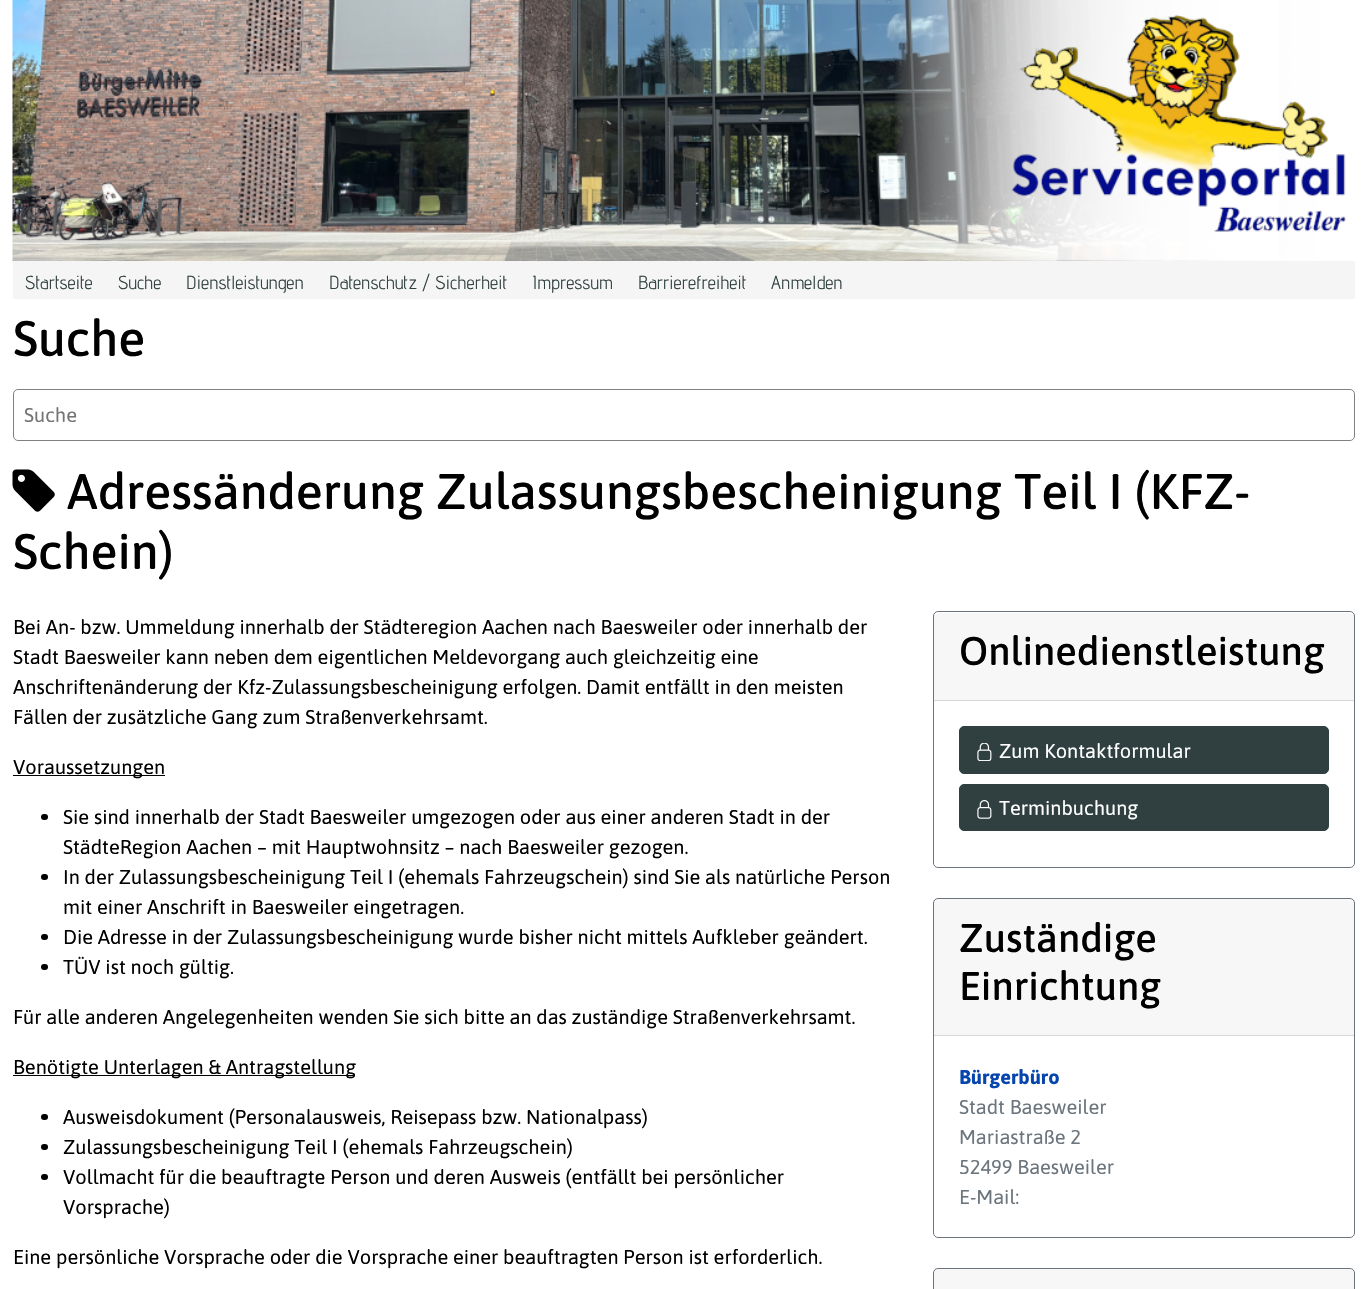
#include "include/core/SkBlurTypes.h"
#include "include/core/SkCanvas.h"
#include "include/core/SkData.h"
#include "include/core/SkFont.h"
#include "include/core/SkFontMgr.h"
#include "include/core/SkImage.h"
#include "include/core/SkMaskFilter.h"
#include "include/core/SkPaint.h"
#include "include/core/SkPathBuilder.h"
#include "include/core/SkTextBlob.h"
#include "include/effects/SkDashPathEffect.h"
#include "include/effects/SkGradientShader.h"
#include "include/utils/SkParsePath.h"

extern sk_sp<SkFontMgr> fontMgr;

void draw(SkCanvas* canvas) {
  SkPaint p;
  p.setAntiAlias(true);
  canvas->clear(SK_ColorWHITE);
  canvas->drawImageRect(SkImages::DeferredFromEncodedData(SkData::MakeFromFileName("images/1.png")), SkRect::MakeLTRB(12, 0, 1346, 262), SkSamplingOptions());
  p.setColor(SkColorSetRGB(245, 245, 245));
  canvas->drawRect(SkRect::MakeLTRB(13, 261, 1355, 299), p);
  p.setStyle(SkPaint::kStroke_Style);
  p.setStrokeWidth(1);
  p.setColor(SkColorSetRGB(128, 128, 128));
  canvas->drawRoundRect(SkRect::MakeLTRB(13.5f, 389.5f, 1354.5f, 440.5f), 4.5f, 4.5f, p);
  canvas->drawImageRect(SkImages::DeferredFromEncodedData(SkData::MakeFromFileName("images/2.png")), SkRect::MakeLTRB(12, 469, 55, 512), SkSamplingOptions());
  p.setStyle(SkPaint::kFill_Style);
  p.setColor(SK_ColorBLACK);
  canvas->drawRect(SkRect::MakeLTRB(13, 775, 165, 776), p);
  canvas->drawRoundRect(SkRect::MakeLTRB(41, 814, 48, 820), 3, 3, p);
  canvas->drawRoundRect(SkRect::MakeLTRB(41, 874, 48, 880), 3, 3, p);
  canvas->drawRoundRect(SkRect::MakeLTRB(41, 934, 48, 940), 3, 3, p);
  canvas->drawRoundRect(SkRect::MakeLTRB(41, 964, 48, 970), 3, 3, p);
  canvas->drawRect(SkRect::MakeLTRB(13, 1075, 355, 1076), p);
  canvas->drawRoundRect(SkRect::MakeLTRB(41, 1114, 48, 1120), 3, 3, p);
  canvas->drawRoundRect(SkRect::MakeLTRB(41, 1144, 48, 1150), 3, 3, p);
  canvas->drawRoundRect(SkRect::MakeLTRB(41, 1174, 48, 1180), 3, 3, p);
  p.setStyle(SkPaint::kStroke_Style);
  p.setColor(SkColorSetRGB(108, 117, 125));
  canvas->drawRoundRect(SkRect::MakeLTRB(933.5f, 611.5f, 1354.5f, 867.5f), 4.5f, 4.5f, p);
  p.setStyle(SkPaint::kFill_Style);
  p.setColor(SkColorSetARGB(8, 0, 0, 0));
  canvas->drawRect(SkRect::MakeLTRB(934, 613, 1354, 700), p);
  p.setColor(SkColorSetRGB(216, 216, 216));
  canvas->drawRect(SkRect::MakeLTRB(934, 700, 1354, 701), p);
  p.setColor(SkColorSetRGB(48, 64, 64));
  canvas->drawRoundRect(SkRect::MakeLTRB(959.5f, 726.5f, 1328.5f, 773.5f), 4.5f, 4.5f, p);
  p.setStyle(SkPaint::kStroke_Style);
  canvas->drawRoundRect(SkRect::MakeLTRB(959.5f, 726.5f, 1328.5f, 773.5f), 4.5f, 4.5f, p);
  canvas->drawImageRect(SkImages::DeferredFromEncodedData(SkData::MakeFromFileName("images/3.png")), SkRect::MakeLTRB(977, 743, 992, 761), SkSamplingOptions());
  p.setStyle(SkPaint::kFill_Style);
  canvas->drawRoundRect(SkRect::MakeLTRB(959.5f, 784.5f, 1328.5f, 830.5f), 4.5f, 4.5f, p);
  p.setStyle(SkPaint::kStroke_Style);
  canvas->drawRoundRect(SkRect::MakeLTRB(959.5f, 784.5f, 1328.5f, 830.5f), 4.5f, 4.5f, p);
  canvas->drawImageRect(SkImages::DeferredFromEncodedData(SkData::MakeFromFileName("images/4.png")), SkRect::MakeLTRB(977, 800, 992, 819), SkSamplingOptions());
  p.setColor(SkColorSetRGB(108, 117, 125));
  canvas->drawRoundRect(SkRect::MakeLTRB(933.5f, 898.5f, 1354.5f, 1237.5f), 4.5f, 4.5f, p);
  p.setStyle(SkPaint::kFill_Style);
  p.setColor(SkColorSetARGB(8, 0, 0, 0));
  canvas->drawRect(SkRect::MakeLTRB(934, 899, 1354, 1035), p);
  p.setColor(SkColorSetRGB(216, 216, 216));
  canvas->drawRect(SkRect::MakeLTRB(934, 1035, 1354, 1036), p);
  p.setStyle(SkPaint::kStroke_Style);
  p.setColor(SkColorSetRGB(108, 117, 125));
  canvas->drawRoundRect(SkRect::MakeLTRB(933.5f, 1268.5f, 1354.5f, 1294.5f), 4.5f, 4.5f, p);
  p.setStyle(SkPaint::kFill_Style);
  p.setColor(SkColorSetARGB(8, 0, 0, 0));
  canvas->drawRect(SkRect::MakeLTRB(934, 1269, 1354, 1289), p);
  SkFont font1(fontMgr->matchFamilyStyle("Advent Pro", SkFontStyle::Normal()), 18.75f);
  font1.setSubpixel(true);
  p.setColor(SkColorSetRGB(48, 64, 64));
  canvas->drawString("Startseite", 25, 289, font1, p);
  canvas->drawString("Suche", 118, 289, font1, p);
  canvas->drawString("Dienstleistungen", 186, 289, font1, p);
  canvas->drawString("Datenschutz / Sicherheit", 329, 289, font1, p);
  canvas->drawString("Impressum", 532, 289, font1, p);
  canvas->drawString("Barrierefreiheit", 638, 289, font1, p);
  canvas->drawString("Anmelden", 771, 289, font1, p);
  SkFont font2(fontMgr->matchFamilyStyle("Asap", SkFontStyle(500, SkFontStyle::kNormal_Width, SkFontStyle::kUpright_Slant)), 50);
  font2.setSubpixel(true);
  p.setColor(SK_ColorBLACK);
  canvas->drawString("Suche", 13, 356, font2, p);
  SkFont font3(fontMgr->matchFamilyStyle("Asap", SkFontStyle::Normal()), 20);
  font3.setSubpixel(true);
  p.setColor(SkColorSetRGB(117, 117, 117));
  canvas->drawString("Suche", 24, 422, font3, p);
  p.setColor(SK_ColorBLACK);
  canvas->drawString("Adressänderung Zulassungsbescheinigung Teil I (KFZ-", 67, 509, font2, p);
  canvas->drawString("Schein)", 13, 569, font2, p);
  canvas->drawString("Bei An- bzw. Ummeldung innerhalb der Städteregion Aachen nach Baesweiler oder innerhalb der", 13, 634, font3, p);
  canvas->drawString("Stadt Baesweiler kann neben dem eigentlichen Meldevorgang auch gleichzeitig eine", 13, 664, font3, p);
  canvas->drawString("Anschriftenänderung der Kfz-Zulassungsbescheinigung erfolgen. Damit entfällt in den meisten", 13, 694, font3, p);
  canvas->drawString("Fällen der zusätzliche Gang zum Straßenverkehrsamt.", 13, 724, font3, p);
  canvas->drawString("Voraussetzungen", 13, 774, font3, p);
  canvas->drawString("Sie sind innerhalb der Stadt Baesweiler umgezogen oder aus einer anderen Stadt in der", 63, 824, font3, p);
  canvas->drawString("StädteRegion Aachen – mit Hauptwohnsitz – nach Baesweiler gezogen.", 63, 854, font3, p);
  canvas->drawString("In der Zulassungsbescheinigung Teil I (ehemals Fahrzeugschein) sind Sie als natürliche Person", 63, 884, font3, p);
  canvas->drawString("mit einer Anschrift in Baesweiler eingetragen.", 63, 914, font3, p);
  canvas->drawString("Die Adresse in der Zulassungsbescheinigung wurde bisher nicht mittels Aufkleber geändert.", 63, 944, font3, p);
  canvas->drawString("TÜV ist noch gültig.", 63, 974, font3, p);
  canvas->drawString("Für alle anderen Angelegenheiten wenden Sie sich bitte an das zuständige Straßenverkehrsamt.", 13, 1024, font3, p);
  canvas->drawString("Benötigte Unterlagen & Antragstellung", 13, 1074, font3, p);
  canvas->drawString("Ausweisdokument (Personalausweis, Reisepass bzw. Nationalpass)", 63, 1124, font3, p);
  canvas->drawString("Zulassungsbescheinigung Teil I (ehemals Fahrzeugschein)", 63, 1154, font3, p);
  canvas->drawString("Vollmacht für die beauftragte Person und deren Ausweis (entfällt bei persönlicher", 63, 1184, font3, p);
  canvas->drawString("Vorsprache)", 63, 1214, font3, p);
  canvas->drawString("Eine persönliche Vorsprache oder die Vorsprache einer beauftragten Person ist erforderlich.", 13, 1264, font3, p);
  SkFont font4(fontMgr->matchFamilyStyle("Asap", SkFontStyle(500, SkFontStyle::kNormal_Width, SkFontStyle::kUpright_Slant)), 40);
  font4.setSubpixel(true);
  canvas->drawString("Onlinedienstleistung", 959, 665, font4, p);
  p.setColor(SK_ColorWHITE);
  canvas->drawString("Zum Kontaktformular", 999, 758, font3, p);
  canvas->drawString("Terminbuchung", 999, 815, font3, p);
  p.setColor(SK_ColorBLACK);
  canvas->drawString("Zuständige", 959, 952, font4, p);
  canvas->drawString("Einrichtung", 959, 1000, font4, p);
  SkFont font5(fontMgr->matchFamilyStyle("Asap", SkFontStyle::Bold()), 20);
  font5.setSubpixel(true);
  p.setColor(SkColorSetRGB(6, 69, 173));
  canvas->drawString("Bürgerbüro", 959, 1084, font5, p);
  p.setColor(SkColorSetRGB(108, 117, 125));
  canvas->drawString("Stadt Baesweiler", 959, 1114, font3, p);
  canvas->drawString("Mariastraße 2", 959, 1144, font3, p);
  canvas->drawString("52499 Baesweiler", 959, 1174, font3, p);
  canvas->drawString("E-Mail:", 959, 1204, font3, p);
}
